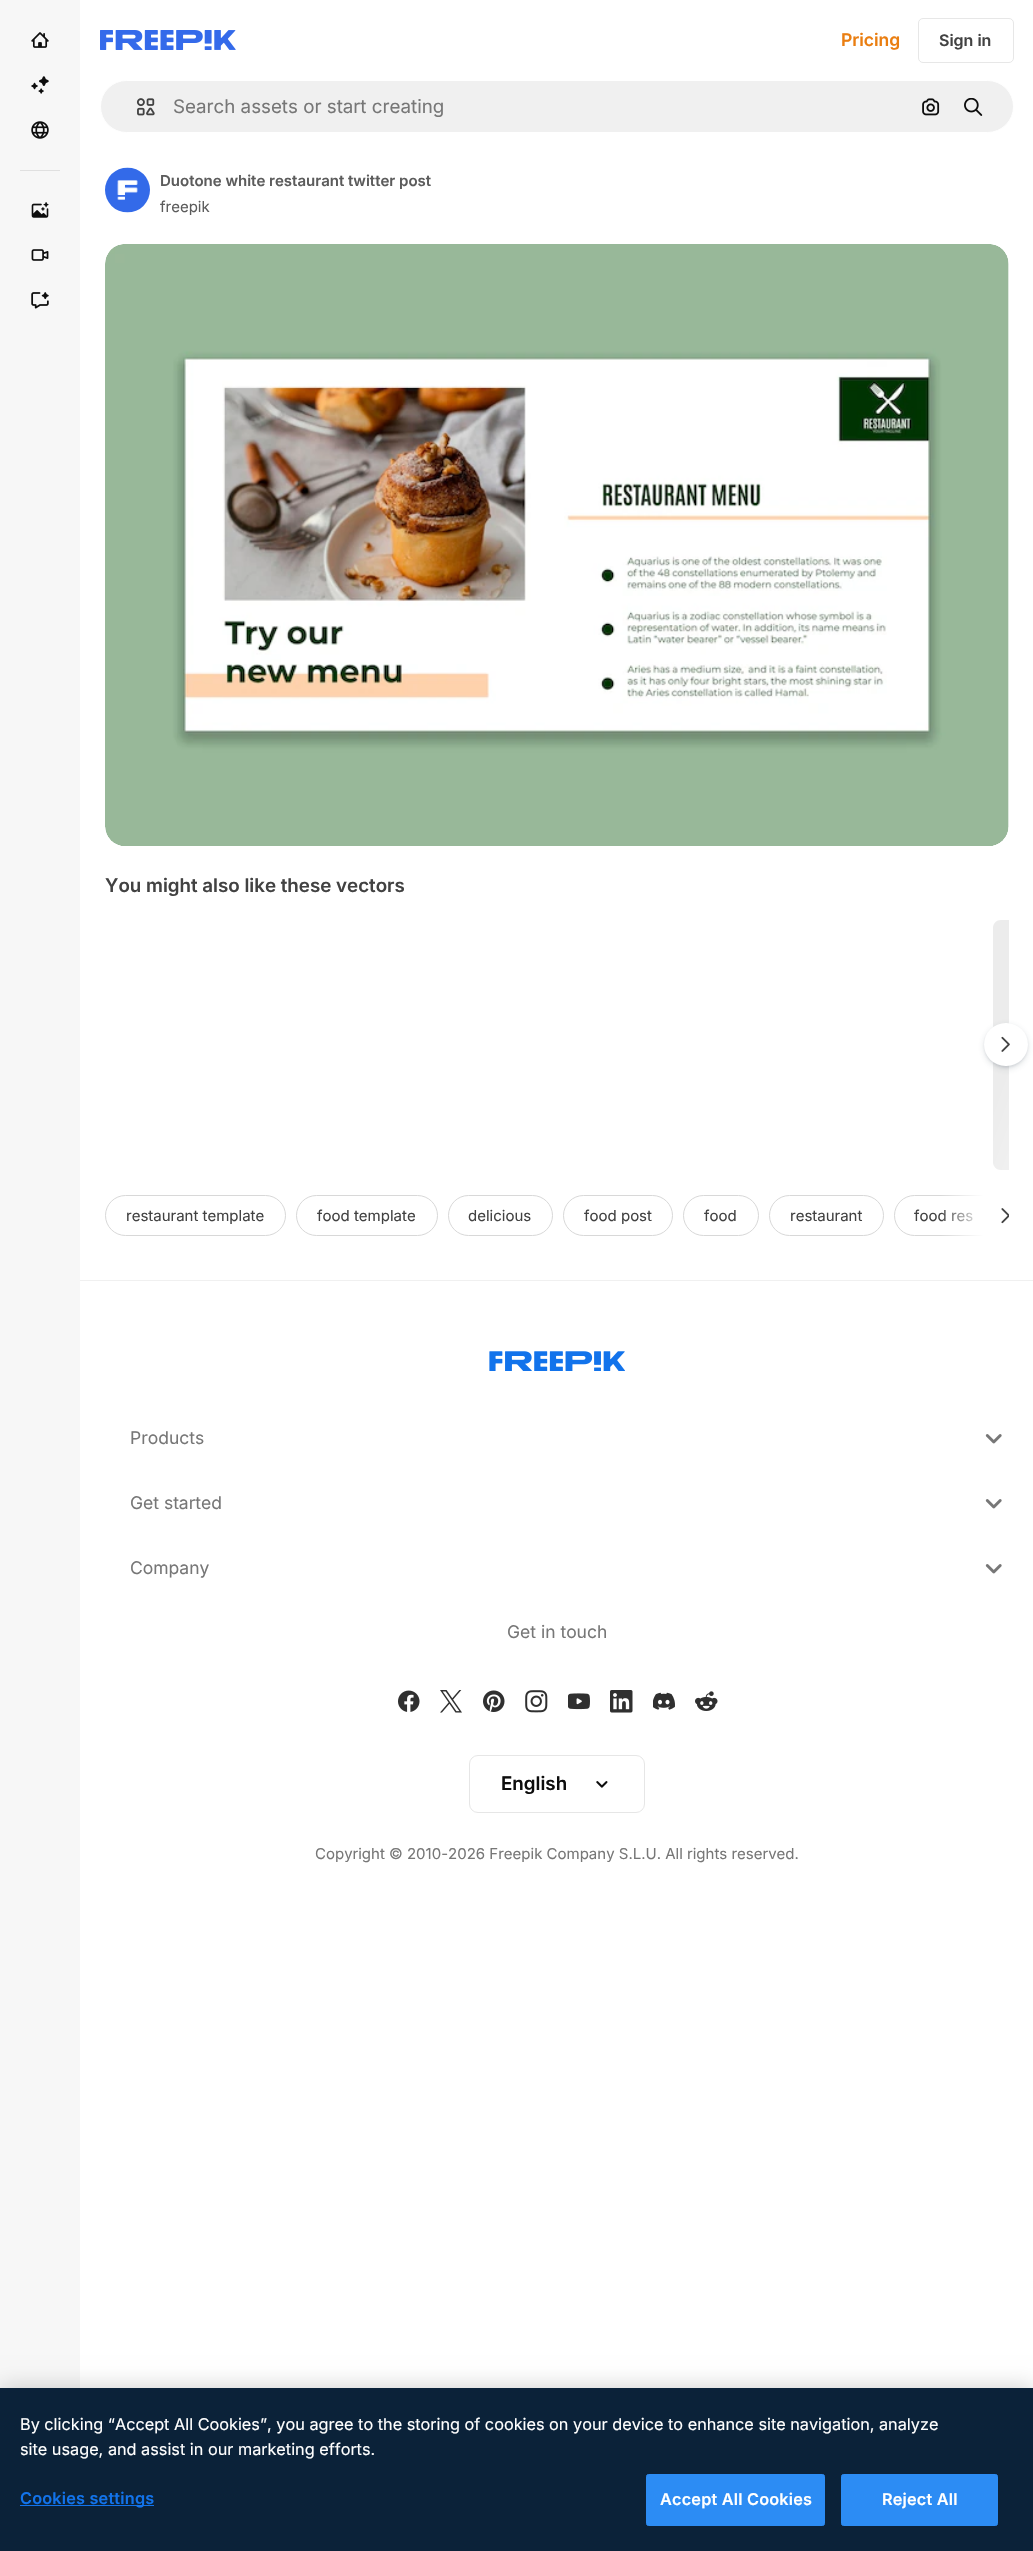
#include "include/core/SkBlurTypes.h"
#include "include/core/SkCanvas.h"
#include "include/core/SkData.h"
#include "include/core/SkFont.h"
#include "include/core/SkFontMgr.h"
#include "include/core/SkImage.h"
#include "include/core/SkMaskFilter.h"
#include "include/core/SkPaint.h"
#include "include/core/SkPathBuilder.h"
#include "include/core/SkTextBlob.h"
#include "include/effects/SkDashPathEffect.h"
#include "include/effects/SkGradientShader.h"
#include "include/utils/SkParsePath.h"

extern sk_sp<SkFontMgr> fontMgr;

void draw(SkCanvas* canvas) {
  SkPaint p;
  p.setAntiAlias(true);
  auto spacedText = [&](const char* s, float x, float y, const SkFont& font, const SkPaint& ink, float letter, float word) {
    std::vector<SkGlyphID> glyphs(font.countText(s, strlen(s), SkTextEncoding::kUTF8));
    std::vector<float> xs(glyphs.size());
    font.textToGlyphs(s, strlen(s), SkTextEncoding::kUTF8, glyphs);
    font.getXPos(glyphs, xs, x);
    float extra = 0;
    for (size_t i = 0; i < glyphs.size(); i++) {
      xs[i] += extra;
      extra += letter + word * (glyphs[i] == font.unicharToGlyph(' '));
    }
    canvas->drawTextBlob(SkTextBlob::MakeFromPosHGlyphs(glyphs, xs, y, font), 0, 0, ink);
  };
  canvas->clear(SK_ColorWHITE);
  p.setColor(SkColorSetRGB(247, 247, 247));
  canvas->drawRect(SkRect::MakeLTRB(0, 0, 80, 2388), p);
  canvas->drawImageRect(SkImages::DeferredFromEncodedData(SkData::MakeFromFileName("images/1.png")), SkRect::MakeLTRB(31, 32, 49, 48), SkSamplingOptions());
  canvas->drawImageRect(SkImages::DeferredFromEncodedData(SkData::MakeFromFileName("images/2.png")), SkRect::MakeLTRB(31, 76, 49, 94), SkSamplingOptions());
  canvas->drawImageRect(SkImages::DeferredFromEncodedData(SkData::MakeFromFileName("images/3.png")), SkRect::MakeLTRB(31, 121, 49, 139), SkSamplingOptions());
  p.setColor(SkColorSetRGB(224, 224, 224));
  canvas->drawRect(SkRect::MakeLTRB(20, 170, 60, 171), p);
  canvas->drawImageRect(SkImages::DeferredFromEncodedData(SkData::MakeFromFileName("images/4.png")), SkRect::MakeLTRB(31, 202, 49, 218), SkSamplingOptions());
  canvas->drawImageRect(SkImages::DeferredFromEncodedData(SkData::MakeFromFileName("images/5.png")), SkRect::MakeLTRB(31, 249, 49, 261), SkSamplingOptions());
  canvas->drawImageRect(SkImages::DeferredFromEncodedData(SkData::MakeFromFileName("images/6.png")), SkRect::MakeLTRB(31, 292, 49, 309), SkSamplingOptions());
  canvas->drawImageRect(SkImages::DeferredFromEncodedData(SkData::MakeFromFileName("images/7.png")), SkRect::MakeLTRB(100, 30, 236, 50), SkSamplingOptions());
  p.setStyle(SkPaint::kStroke_Style);
  p.setStrokeWidth(1);
  p.setColor(SkColorSetRGB(231, 231, 231));
  canvas->drawRoundRect(SkRect::MakeLTRB(918.5f, 18.5f, 1013.5f, 62.5f), 4.5f, 4.5f, p);
  p.setStyle(SkPaint::kFill_Style);
  p.setColor(SkColorSetRGB(240, 240, 240));
  canvas->drawRoundRect(SkRect::MakeLTRB(100.5f, 80.5f, 1013.5f, 132.5f), 26, 26, p);
  p.setStyle(SkPaint::kStroke_Style);
  p.setColor(SK_ColorWHITE);
  canvas->drawRoundRect(SkRect::MakeLTRB(100.5f, 80.5f, 1013.5f, 132.5f), 26, 26, p);
  canvas->drawImageRect(SkImages::DeferredFromEncodedData(SkData::MakeFromFileName("images/8.png")), SkRect::MakeLTRB(136, 98, 155, 116), SkSamplingOptions());
  canvas->drawImageRect(SkImages::DeferredFromEncodedData(SkData::MakeFromFileName("images/9.png")), SkRect::MakeLTRB(922, 98, 940, 116), SkSamplingOptions());
  canvas->drawImageRect(SkImages::DeferredFromEncodedData(SkData::MakeFromFileName("images/10.png")), SkRect::MakeLTRB(964, 98, 983, 116), SkSamplingOptions());
  canvas->drawImageRect(SkImages::DeferredFromEncodedData(SkData::MakeFromFileName("images/11.png")), SkRect::MakeLTRB(105, 167, 150, 213), SkSamplingOptions());
  canvas->drawImageRect(SkImages::DeferredFromEncodedData(SkData::MakeFromFileName("images/12.png")), SkRect::MakeLTRB(105, 244, 1009, 846), SkSamplingOptions());
  p.setStyle(SkPaint::kFill_Style);
  {
    const SkColor colors[] = {SkColorSetRGB(236, 236, 236), SkColorSetRGB(245, 245, 245), SkColorSetRGB(236, 236, 236)};
    const float stops[] = {0.08f, 0.18f, 0.33f};
    const SkPoint ends[] = {{996, 910}, {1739, 1180}};
    p.setShader(SkGradientShader::MakeLinear(ends, colors, stops, 3, SkTileMode::kClamp));
    p.setAlpha(255);
  }
  canvas->drawPath(SkPathBuilder().moveTo(1001, 920).lineTo(1009, 920).lineTo(1009, 1170).lineTo(1001, 1170).cubicTo(996.5f, 1170, 993, 1166.5f, 993, 1162).lineTo(993, 928).cubicTo(993, 923.5f, 996.5f, 920, 1001, 920).close().detach(), p);
  p.setShader(nullptr);
  p.setColor(SkColorSetARGB(38, 55, 73, 87));
  p.setMaskFilter(SkMaskFilter::MakeBlur(kNormal_SkBlurStyle, 3));
  canvas->drawRoundRect(SkRect::MakeLTRB(984, 1025, 1028, 1069), 22, 22, p);
  p.setMaskFilter(nullptr);
  p.setColor(SkColorSetARGB(26, 55, 73, 87));
  p.setMaskFilter(SkMaskFilter::MakeBlur(kNormal_SkBlurStyle, 1));
  canvas->drawRoundRect(SkRect::MakeLTRB(984, 1024, 1028, 1068), 22, 22, p);
  p.setMaskFilter(nullptr);
  p.setColor(SK_ColorWHITE);
  canvas->drawRoundRect(SkRect::MakeLTRB(984, 1023, 1028, 1066), 21.5f, 21.5f, p);
  canvas->drawImageRect(SkImages::DeferredFromEncodedData(SkData::MakeFromFileName("images/13.png")), SkRect::MakeLTRB(1001, 1036, 1010, 1052), SkSamplingOptions());
  p.setStyle(SkPaint::kStroke_Style);
  p.setColor(SkColorSetRGB(216, 216, 216));
  canvas->drawRoundRect(SkRect::MakeLTRB(105.5f, 1195.5f, 285.5f, 1235.5f), 20, 20, p);
  canvas->drawRoundRect(SkRect::MakeLTRB(296.5f, 1195.5f, 437.5f, 1235.5f), 20, 20, p);
  canvas->drawRoundRect(SkRect::MakeLTRB(448.5f, 1195.5f, 552.5f, 1235.5f), 20, 20, p);
  canvas->drawRoundRect(SkRect::MakeLTRB(563.5f, 1195.5f, 672.5f, 1235.5f), 20, 20, p);
  canvas->drawRoundRect(SkRect::MakeLTRB(683.5f, 1195.5f, 758.5f, 1235.5f), 20, 20, p);
  canvas->drawRoundRect(SkRect::MakeLTRB(769.5f, 1195.5f, 883.5f, 1235.5f), 20, 20, p);
  canvas->save();
  canvas->clipRect(SkRect::MakeLTRB(105, 1195, 1009, 1236));
  canvas->drawRoundRect(SkRect::MakeLTRB(894.5f, 1195.5f, 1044.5f, 1235.5f), 20, 20, p);
  canvas->restore();
  p.setStyle(SkPaint::kFill_Style);
  p.setColor(SK_ColorWHITE);
  canvas->drawRect(SkRect::MakeLTRB(984, 1195, 1009, 1236), p);
  canvas->drawImageRect(SkImages::DeferredFromEncodedData(SkData::MakeFromFileName("images/14.png")), SkRect::MakeLTRB(1001, 1208, 1009, 1224), SkSamplingOptions());
  p.setColor(SkColorSetRGB(240, 240, 240));
  canvas->drawRect(SkRect::MakeLTRB(80, 1280, 1033, 1281), p);
  canvas->drawImageRect(SkImages::DeferredFromEncodedData(SkData::MakeFromFileName("images/15.png")), SkRect::MakeLTRB(489, 1351, 625, 1371), SkSamplingOptions());
  canvas->drawImageRect(SkImages::DeferredFromEncodedData(SkData::MakeFromFileName("images/16.png")), SkRect::MakeLTRB(985, 1434, 1002, 1444), SkSamplingOptions());
  canvas->drawImageRect(SkImages::DeferredFromEncodedData(SkData::MakeFromFileName("images/16.png")), SkRect::MakeLTRB(985, 1499, 1002, 1509), SkSamplingOptions());
  canvas->drawImageRect(SkImages::DeferredFromEncodedData(SkData::MakeFromFileName("images/16.png")), SkRect::MakeLTRB(985, 1564, 1002, 1574), SkSamplingOptions());
  canvas->drawImageRect(SkImages::DeferredFromEncodedData(SkData::MakeFromFileName("images/17.png")), SkRect::MakeLTRB(398, 1690, 420, 1712), SkSamplingOptions());
  canvas->drawImageRect(SkImages::DeferredFromEncodedData(SkData::MakeFromFileName("images/18.png")), SkRect::MakeLTRB(440, 1690, 462, 1713), SkSamplingOptions());
  canvas->drawImageRect(SkImages::DeferredFromEncodedData(SkData::MakeFromFileName("images/19.png")), SkRect::MakeLTRB(483, 1690, 505, 1712), SkSamplingOptions());
  canvas->drawImageRect(SkImages::DeferredFromEncodedData(SkData::MakeFromFileName("images/20.png")), SkRect::MakeLTRB(525, 1690, 548, 1713), SkSamplingOptions());
  canvas->drawImageRect(SkImages::DeferredFromEncodedData(SkData::MakeFromFileName("images/21.png")), SkRect::MakeLTRB(568, 1693, 590, 1710), SkSamplingOptions());
  canvas->drawImageRect(SkImages::DeferredFromEncodedData(SkData::MakeFromFileName("images/22.png")), SkRect::MakeLTRB(610, 1690, 633, 1713), SkSamplingOptions());
  canvas->drawImageRect(SkImages::DeferredFromEncodedData(SkData::MakeFromFileName("images/23.png")), SkRect::MakeLTRB(653, 1692, 675, 1710), SkSamplingOptions());
  canvas->drawImageRect(SkImages::DeferredFromEncodedData(SkData::MakeFromFileName("images/24.png")), SkRect::MakeLTRB(695, 1691, 718, 1711), SkSamplingOptions());
  p.setStyle(SkPaint::kStroke_Style);
  p.setColor(SkColorSetRGB(230, 230, 230));
  canvas->drawRoundRect(SkRect::MakeLTRB(469.5f, 1755.5f, 644.5f, 1812.5f), 8.5f, 8.5f, p);
  canvas->drawImageRect(SkImages::DeferredFromEncodedData(SkData::MakeFromFileName("images/25.png")), SkRect::MakeLTRB(596, 1781, 608, 1788), SkSamplingOptions());
  p.setStyle(SkPaint::kFill_Style);
  p.setColor(SkColorSetARGB(51, 0, 0, 0));
  p.setMaskFilter(SkMaskFilter::MakeBlur(kNormal_SkBlurStyle, 11));
  canvas->drawRect(SkRect::MakeLTRB(0, 2388, 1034, 2551), p);
  p.setMaskFilter(nullptr);
  p.setColor(SkColorSetRGB(11, 34, 57));
  canvas->drawRect(SkRect::MakeLTRB(0, 2388, 1033, 2551), p);
  p.setColor(SkColorSetRGB(18, 115, 235));
  canvas->drawRect(SkRect::MakeLTRB(20, 2505, 154, 2506), p);
  p.setColor(SkColorSetRGB(44, 140, 244));
  canvas->drawRoundRect(SkRect::MakeLTRB(646.5f, 2474.5f, 824.5f, 2525.5f), 2, 2, p);
  p.setStyle(SkPaint::kStroke_Style);
  canvas->drawRoundRect(SkRect::MakeLTRB(646.5f, 2474.5f, 824.5f, 2525.5f), 2, 2, p);
  p.setStyle(SkPaint::kFill_Style);
  canvas->drawRoundRect(SkRect::MakeLTRB(841.5f, 2474.5f, 997.5f, 2525.5f), 2, 2, p);
  p.setStyle(SkPaint::kStroke_Style);
  canvas->drawRoundRect(SkRect::MakeLTRB(841.5f, 2474.5f, 997.5f, 2525.5f), 2, 2, p);
  SkFont font1(fontMgr->matchFamilyStyle("Inter", SkFontStyle(600, SkFontStyle::kNormal_Width, SkFontStyle::kUpright_Slant)), 17.5f);
  font1.setSubpixel(true);
  p.setStyle(SkPaint::kFill_Style);
  p.setColor(SkColorSetRGB(234, 126, 17));
  canvas->drawString("Pricing", 841, 46, font1, p);
  SkFont font2(fontMgr->matchFamilyStyle("Inter", SkFontStyle(600, SkFontStyle::kNormal_Width, SkFontStyle::kUpright_Slant)), 16);
  font2.setSubpixel(true);
  p.setColor(SkColorSetRGB(66, 66, 66));
  canvas->drawString("Sign in", 939, 46, font2, p);
  SkFont font3(fontMgr->matchFamilyStyle("Inter", SkFontStyle::Normal()), 18.75f);
  font3.setSubpixel(true);
  p.setColor(SkColorSetRGB(119, 119, 119));
  canvas->drawString("Search assets or start creating", 173, 113, font3, p);
  SkFont font4(fontMgr->matchFamilyStyle("Inter", SkFontStyle(600, SkFontStyle::kNormal_Width, SkFontStyle::kUpright_Slant)), 15);
  font4.setSubpixel(true);
  p.setColor(SkColorSetRGB(92, 92, 92));
  canvas->drawString("Duotone white restaurant twitter post", 160, 186, font4, p);
  SkFont font5(fontMgr->matchFamilyStyle("Inter", SkFontStyle::Normal()), 15);
  font5.setSubpixel(true);
  canvas->drawString("freepik", 160, 212, font5, p);
  SkFont font6(fontMgr->matchFamilyStyle("Inter", SkFontStyle(600, SkFontStyle::kNormal_Width, SkFontStyle::kUpright_Slant)), 18.75f);
  font6.setSubpixel(true);
  p.setColor(SkColorSetRGB(66, 66, 66));
  canvas->drawString("You might also like these vectors", 105, 892, font6, p);
  canvas->drawString("restaurant template", 126, 1221, font5, p);
  canvas->drawString("food template", 317, 1221, font5, p);
  canvas->drawString("delicious", 468, 1221, font5, p);
  canvas->drawString("food post", 584, 1221, font5, p);
  canvas->drawString("food", 704, 1221, font5, p);
  canvas->drawString("restaurant", 790, 1221, font5, p);
  canvas->drawString("food res", 914, 1221, font5, p);
  {
    const SkColor colors[] = {SK_ColorWHITE, SkColorSetARGB(0, 255, 255, 255)};
    const float stops[] = {0, 1};
    const SkPoint ends[] = {{984, 1216}, {940, 1216}};
    p.setShader(SkGradientShader::MakeLinear(ends, colors, stops, 2, SkTileMode::kClamp));
    p.setAlpha(255);
  }
  canvas->drawRect(SkRect::MakeLTRB(941, 1195, 984, 1236), p);
  SkFont font7(fontMgr->matchFamilyStyle("Inter", SkFontStyle::Normal()), 17.5f);
  font7.setSubpixel(true);
  p.setShader(nullptr);
  p.setColor(SkColorSetRGB(119, 119, 119));
  canvas->drawString("Products", 130, 1444, font7, p);
  canvas->drawString("Get started", 130, 1509, font7, p);
  canvas->drawString("Company", 130, 1574, font7, p);
  canvas->drawString("Get in touch", 507, 1638, font7, p);
  p.setColor(SkColorSetRGB(13, 13, 13));
  canvas->drawString("English", 501, 1790, font6, p);
  p.setColor(SkColorSetRGB(119, 119, 119));
  canvas->drawString("Copyright © 2010-2026 Freepik Company S.L.U. All rights reserved.", 315, 1859, font5, p);
  SkFont font8(fontMgr->matchFamilyStyle("Inter", SkFontStyle::Normal()), 16.25f);
  font8.setSubpixel(true);
  p.setColor(SK_ColorWHITE);
  canvas->drawString("By clicking “Accept All Cookies”, you agree to the storing of cookies on your device to enhance site navigation, analyze", 20, 2430, font8, p);
  canvas->drawString("site usage, and assist in our marketing efforts.", 20, 2455, font8, p);
  SkFont font9(fontMgr->matchFamilyStyle("Inter", SkFontStyle(600, SkFontStyle::kNormal_Width, SkFontStyle::kUpright_Slant)), 16.25f);
  font9.setSubpixel(true);
  p.setColor(SkColorSetRGB(18, 115, 235));
  spacedText("Cookies settings", 20, 2504, font9, p, 0.2f, 0);
  p.setColor(SK_ColorWHITE);
  spacedText("Accept All Cookies", 660, 2505, font9, p, 0.2f, 0);
  spacedText("Reject All", 882, 2505, font9, p, 0.2f, 0);
}
